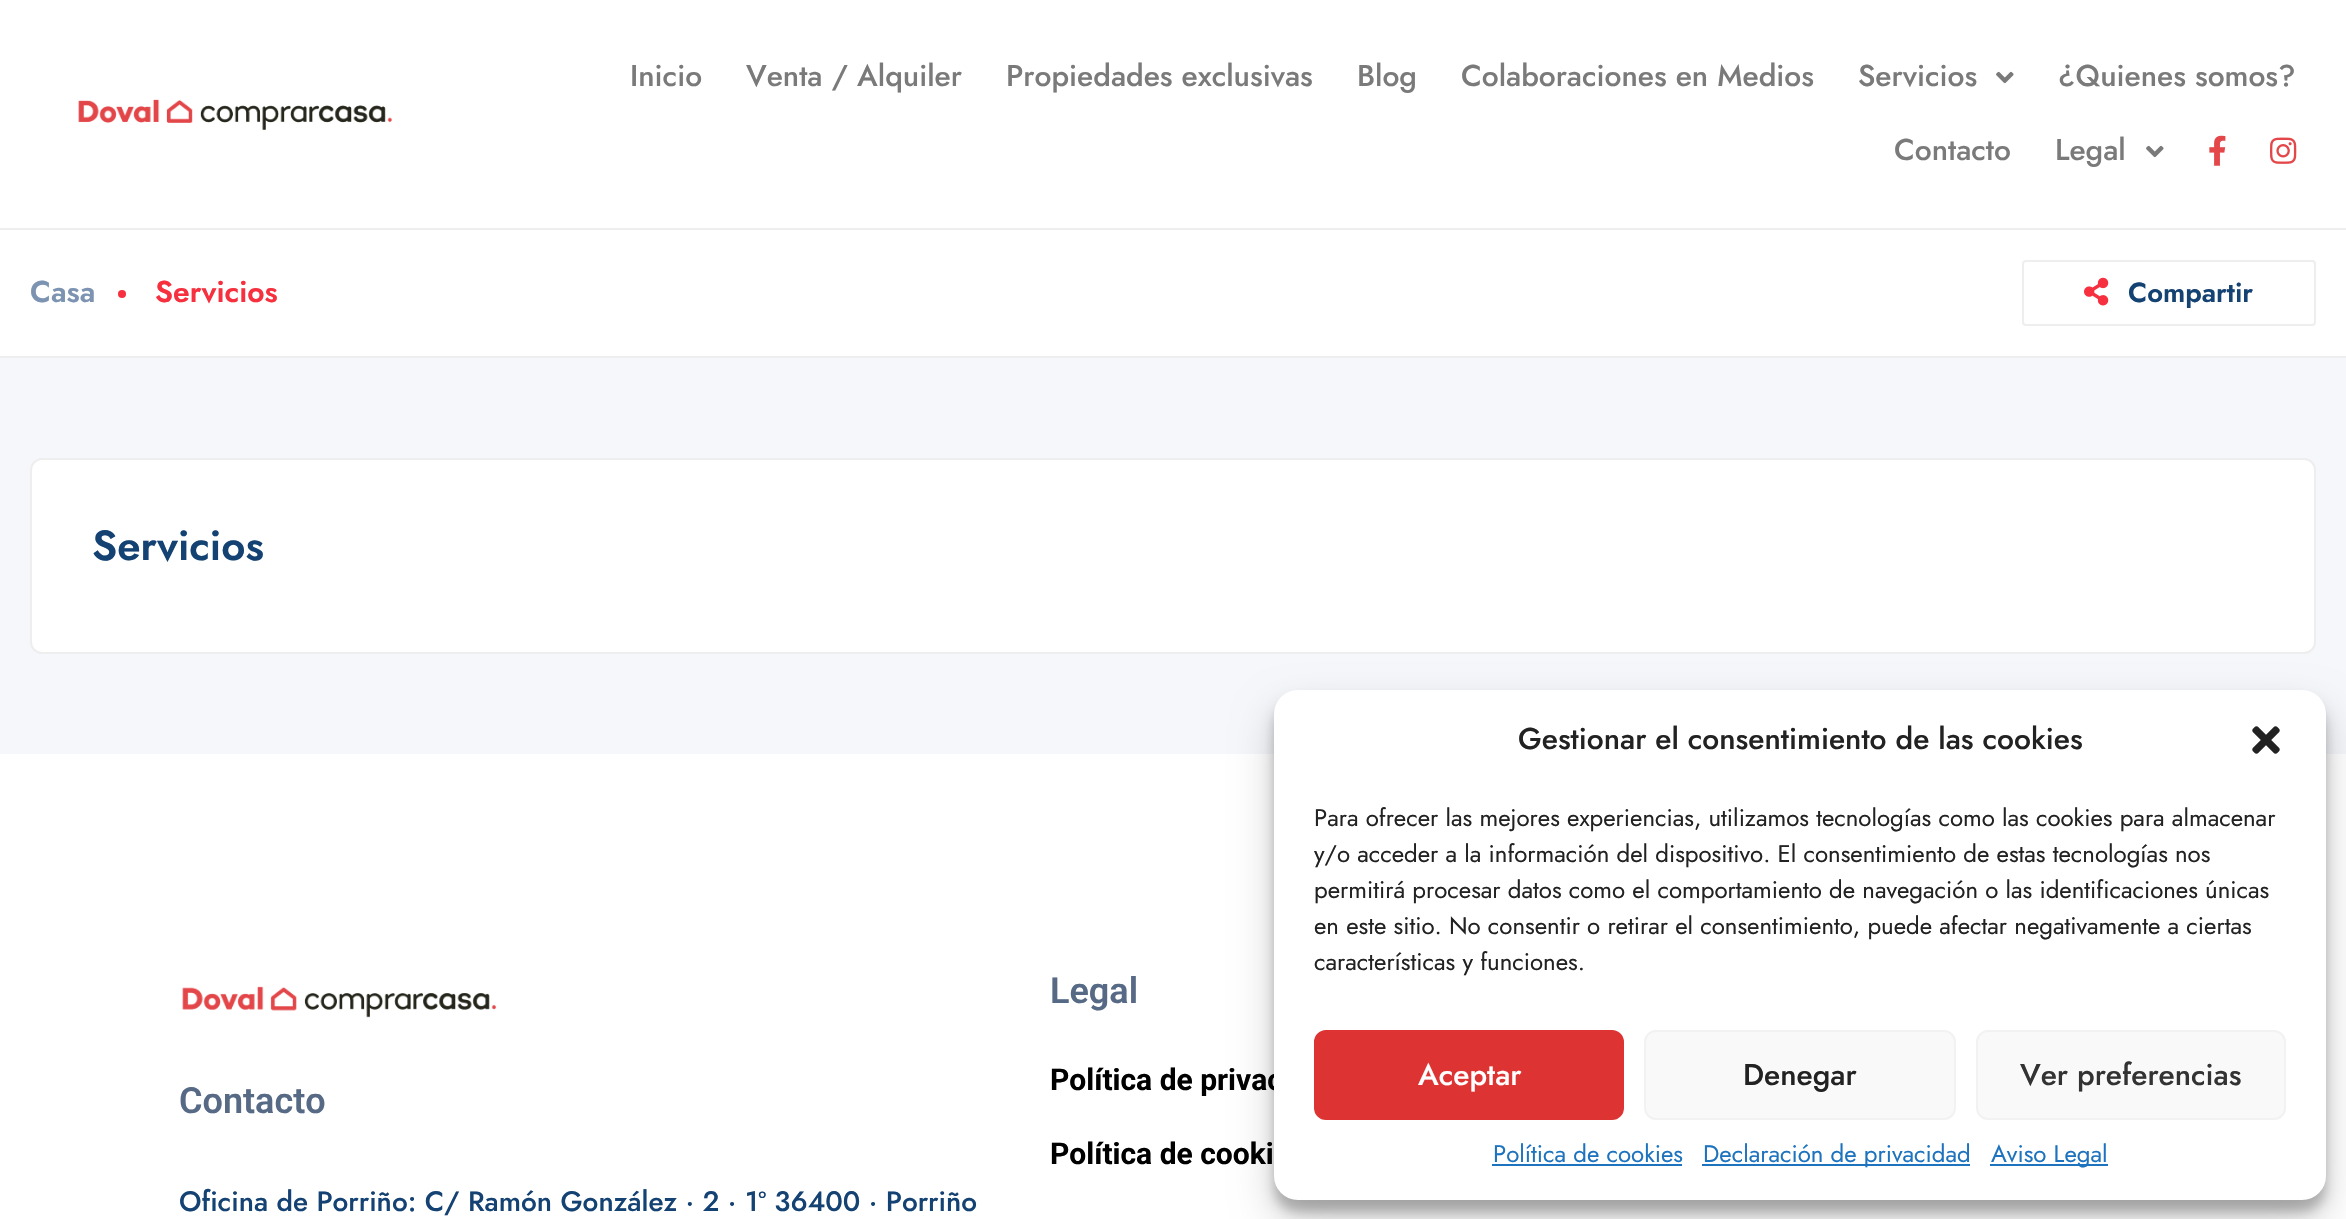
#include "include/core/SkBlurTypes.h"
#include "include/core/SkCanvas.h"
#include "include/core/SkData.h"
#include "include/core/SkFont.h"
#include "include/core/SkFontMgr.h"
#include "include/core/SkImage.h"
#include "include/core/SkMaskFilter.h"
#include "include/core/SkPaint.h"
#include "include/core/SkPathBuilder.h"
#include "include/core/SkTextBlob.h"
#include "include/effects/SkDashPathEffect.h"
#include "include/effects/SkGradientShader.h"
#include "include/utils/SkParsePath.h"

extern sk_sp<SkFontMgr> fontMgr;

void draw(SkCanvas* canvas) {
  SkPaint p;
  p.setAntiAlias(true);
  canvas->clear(SK_ColorWHITE);
  canvas->drawImageRect(SkImages::DeferredFromEncodedData(SkData::MakeFromFileName("images/1.png")), SkRect::MakeLTRB(78, 99, 392, 130), SkSamplingOptions());
  canvas->drawImageRect(SkImages::DeferredFromEncodedData(SkData::MakeFromFileName("images/2.png")), SkRect::MakeLTRB(1996, 71, 2014, 84), SkSamplingOptions());
  canvas->drawImageRect(SkImages::DeferredFromEncodedData(SkData::MakeFromFileName("images/2.png")), SkRect::MakeLTRB(2146, 145, 2164, 158), SkSamplingOptions());
  canvas->drawImageRect(SkImages::DeferredFromEncodedData(SkData::MakeFromFileName("images/3.png")), SkRect::MakeLTRB(2209, 135, 2226, 166), SkSamplingOptions());
  canvas->drawImageRect(SkImages::DeferredFromEncodedData(SkData::MakeFromFileName("images/4.png")), SkRect::MakeLTRB(2270, 137, 2297, 164), SkSamplingOptions());
  p.setColor(SkColorSetRGB(238, 238, 238));
  canvas->drawRect(SkRect::MakeLTRB(0, 228, 2346, 230), p);
  canvas->drawRect(SkRect::MakeLTRB(0, 356, 2346, 358), p);
  p.setColor(SkColorSetRGB(246, 48, 62));
  canvas->drawCircle(122, 294, 4, p);
  p.setStyle(SkPaint::kStroke_Style);
  p.setStrokeWidth(2);
  p.setColor(SkColorSetRGB(238, 238, 238));
  canvas->drawRoundRect(SkRect::MakeLTRB(2023, 261, 2315, 325), 3, 3, p);
  canvas->drawImageRect(SkImages::DeferredFromEncodedData(SkData::MakeFromFileName("images/5.png")), SkRect::MakeLTRB(2084, 277, 2109, 306), SkSamplingOptions());
  p.setStyle(SkPaint::kFill_Style);
  p.setColor(SkColorSetRGB(245, 247, 251));
  canvas->drawRect(SkRect::MakeLTRB(0, 358, 2346, 754), p);
  p.setColor(SK_ColorWHITE);
  canvas->drawRoundRect(SkRect::MakeLTRB(31, 459, 2315, 653), 11, 11, p);
  p.setStyle(SkPaint::kStroke_Style);
  p.setColor(SkColorSetRGB(238, 238, 238));
  canvas->drawRoundRect(SkRect::MakeLTRB(31, 459, 2315, 653), 11, 11, p);
  canvas->drawImageRect(SkImages::DeferredFromEncodedData(SkData::MakeFromFileName("images/6.png")), SkRect::MakeLTRB(182, 986, 497, 1018), SkSamplingOptions());
  p.setStyle(SkPaint::kFill_Style);
  p.setColor(SkColorSetARGB(59, 0, 0, 0));
  p.setMaskFilter(SkMaskFilter::MakeBlur(kNormal_SkBlurStyle, 6));
  canvas->drawRoundRect(SkRect::MakeLTRB(1274, 702, 2326, 1212), 24, 24, p);
  p.setMaskFilter(nullptr);
  p.setColor(SkColorSetARGB(48, 0, 0, 0));
  p.setMaskFilter(SkMaskFilter::MakeBlur(kNormal_SkBlurStyle, 20));
  canvas->drawRoundRect(SkRect::MakeLTRB(1274, 710, 2326, 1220), 24, 24, p);
  p.setMaskFilter(nullptr);
  SkFont font1(fontMgr->matchFamilyStyle("Jost", SkFontStyle(500, SkFontStyle::kNormal_Width, SkFontStyle::kUpright_Slant)), 30);
  font1.setSubpixel(true);
  p.setColor(SkColorSetRGB(122, 122, 122));
  canvas->drawString("Inicio", 630, 86, font1, p);
  canvas->drawString("Venta / Alquiler", 746, 86, font1, p);
  canvas->drawString("Propiedades exclusivas", 1006, 86, font1, p);
  canvas->drawString("Blog", 1357, 86, font1, p);
  canvas->drawString("Colaboraciones en Medios", 1461, 86, font1, p);
  canvas->drawString("Servicios", 1858, 86, font1, p);
  canvas->drawString("¿Quienes somos?", 2058, 86, font1, p);
  canvas->drawString("Contacto", 1894, 160, font1, p);
  canvas->drawString("Legal", 2055, 160, font1, p);
  SkFont font2(fontMgr->matchFamilyStyle("Jost", SkFontStyle(600, SkFontStyle::kNormal_Width, SkFontStyle::kUpright_Slant)), 30);
  font2.setSubpixel(true);
  p.setColor(SkColorSetRGB(125, 147, 178));
  canvas->drawString("Casa", 30, 302, font2, p);
  p.setColor(SkColorSetRGB(246, 48, 62));
  canvas->drawString("Servicios", 155, 302, font2, p);
  SkFont font3(fontMgr->matchFamilyStyle("Jost", SkFontStyle(600, SkFontStyle::kNormal_Width, SkFontStyle::kUpright_Slant)), 27.5f);
  font3.setSubpixel(true);
  p.setColor(SkColorSetRGB(20, 66, 115));
  canvas->drawString("Compartir", 2128, 302, font3, p);
  SkFont font4(fontMgr->matchFamilyStyle("Jost", SkFontStyle(600, SkFontStyle::kNormal_Width, SkFontStyle::kUpright_Slant)), 42);
  font4.setSubpixel(true);
  canvas->drawString("Servicios", 92, 560, font4, p);
  SkFont font5(fontMgr->matchFamilyStyle("Roboto", SkFontStyle(600, SkFontStyle::kNormal_Width, SkFontStyle::kUpright_Slant)), 36);
  font5.setSubpixel(true);
  p.setColor(SkColorSetRGB(86, 105, 133));
  canvas->drawString("Contacto", 179, 1113, font5, p);
  SkFont font6(fontMgr->matchFamilyStyle("Jost", SkFontStyle(500, SkFontStyle::kNormal_Width, SkFontStyle::kUpright_Slant)), 28);
  font6.setSubpixel(true);
  p.setColor(SkColorSetRGB(20, 66, 115));
  canvas->drawString("Oficina de Porriño: C/ Ramón González · 2 · 1º 36400 · Porriño", 179, 1211, font6, p);
  p.setColor(SkColorSetRGB(86, 105, 133));
  canvas->drawString("Legal", 1050, 1003, font5, p);
  SkFont font7(fontMgr->matchFamilyStyle("Roboto", SkFontStyle::Bold()), 30);
  font7.setSubpixel(true);
  p.setColor(SK_ColorBLACK);
  canvas->drawString("Política de privac", 1050, 1090, font7, p);
  canvas->drawString("Política de cooki", 1050, 1164, font7, p);
  p.setColor(SK_ColorWHITE);
  canvas->drawRoundRect(SkRect::MakeLTRB(1274, 690, 2326, 1200), 24, 24, p);
  p.setColor(SkColorSetRGB(34, 34, 34));
  canvas->drawString("Gestionar el consentimiento de las cookies", 1518, 749, font1, p);
  canvas->drawImageRect(SkImages::DeferredFromEncodedData(SkData::MakeFromFileName("images/7.png")), SkRect::MakeLTRB(2252, 726, 2280, 754), SkSamplingOptions());
  SkFont font8(fontMgr->matchFamilyStyle("Jost", SkFontStyle::Normal()), 24);
  font8.setSubpixel(true);
  canvas->drawString("Para ofrecer las mejores experiencias, utilizamos tecnologías como las cookies para almacenar", 1314, 826, font8, p);
  canvas->drawString("y/o acceder a la información del dispositivo. El consentimiento de estas tecnologías nos", 1314, 862, font8, p);
  canvas->drawString("permitirá procesar datos como el comportamiento de navegación o las identificaciones únicas", 1314, 898, font8, p);
  canvas->drawString("en este sitio. No consentir o retirar el consentimiento, puede afectar negativamente a ciertas", 1314, 934, font8, p);
  canvas->drawString("características y funciones.", 1314, 970, font8, p);
  p.setColor(SkColorSetRGB(221, 51, 51));
  canvas->drawRoundRect(SkRect::MakeLTRB(1315, 1031, 1623, 1119), 11, 11, p);
  p.setStyle(SkPaint::kStroke_Style);
  canvas->drawRoundRect(SkRect::MakeLTRB(1315, 1031, 1623, 1119), 11, 11, p);
  p.setStyle(SkPaint::kFill_Style);
  p.setColor(SK_ColorWHITE);
  canvas->drawString("Aceptar", 1418, 1085, font1, p);
  p.setColor(SkColorSetRGB(249, 249, 249));
  canvas->drawRoundRect(SkRect::MakeLTRB(1645, 1031, 1955, 1119), 11, 11, p);
  p.setStyle(SkPaint::kStroke_Style);
  p.setColor(SkColorSetRGB(242, 242, 242));
  canvas->drawRoundRect(SkRect::MakeLTRB(1645, 1031, 1955, 1119), 11, 11, p);
  p.setStyle(SkPaint::kFill_Style);
  p.setColor(SkColorSetRGB(34, 34, 34));
  canvas->drawString("Denegar", 1743, 1085, font1, p);
  p.setColor(SkColorSetRGB(249, 249, 249));
  canvas->drawRoundRect(SkRect::MakeLTRB(1977, 1031, 2285, 1119), 11, 11, p);
  p.setStyle(SkPaint::kStroke_Style);
  p.setColor(SkColorSetRGB(242, 242, 242));
  canvas->drawRoundRect(SkRect::MakeLTRB(1977, 1031, 2285, 1119), 11, 11, p);
  p.setStyle(SkPaint::kFill_Style);
  p.setColor(SkColorSetRGB(51, 51, 51));
  canvas->drawString("Ver preferencias", 2020, 1085, font1, p);
  p.setColor(SkColorSetRGB(30, 115, 190));
  canvas->drawString("Política de cookies", 1493, 1162, font8, p);
  canvas->drawRect(SkRect::MakeLTRB(1492, 1164, 1682, 1166), p);
  canvas->drawRect(SkRect::MakeLTRB(1702, 1164, 1970, 1166), p);
  canvas->drawString("Declaración de privacidad", 1703, 1162, font8, p);
  canvas->drawRect(SkRect::MakeLTRB(1990, 1164, 2108, 1166), p);
  canvas->drawString("Aviso Legal", 1991, 1162, font8, p);
}
